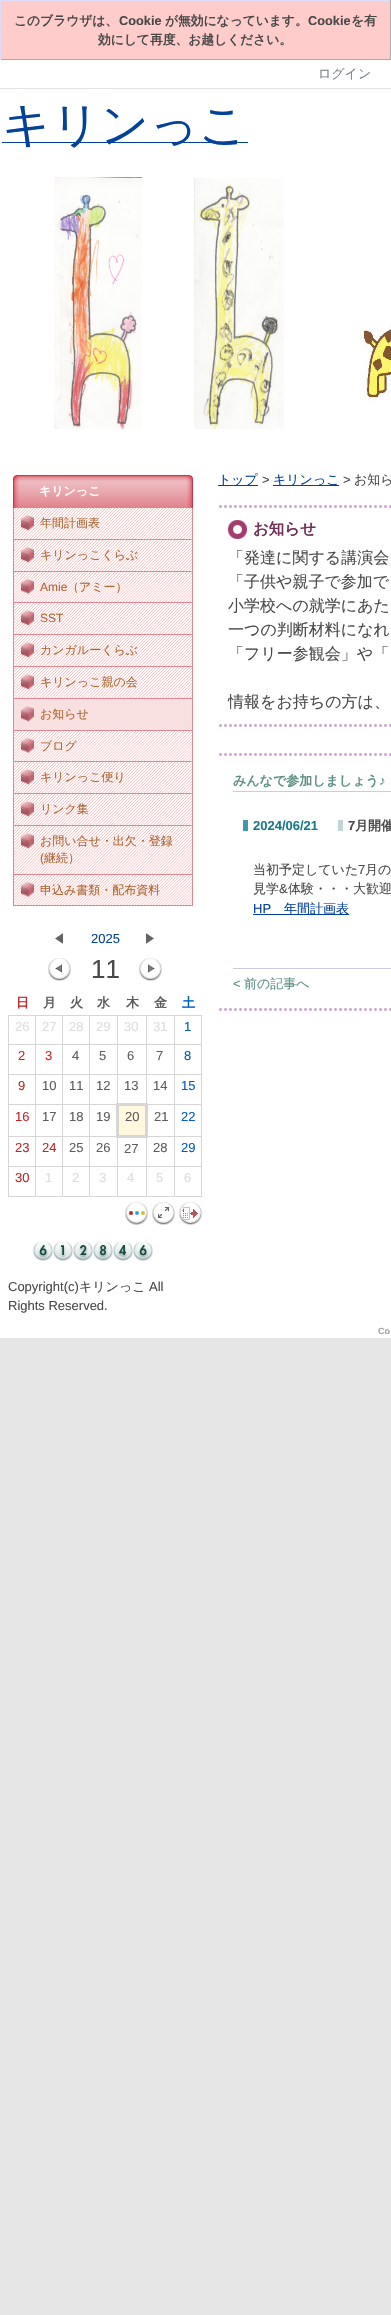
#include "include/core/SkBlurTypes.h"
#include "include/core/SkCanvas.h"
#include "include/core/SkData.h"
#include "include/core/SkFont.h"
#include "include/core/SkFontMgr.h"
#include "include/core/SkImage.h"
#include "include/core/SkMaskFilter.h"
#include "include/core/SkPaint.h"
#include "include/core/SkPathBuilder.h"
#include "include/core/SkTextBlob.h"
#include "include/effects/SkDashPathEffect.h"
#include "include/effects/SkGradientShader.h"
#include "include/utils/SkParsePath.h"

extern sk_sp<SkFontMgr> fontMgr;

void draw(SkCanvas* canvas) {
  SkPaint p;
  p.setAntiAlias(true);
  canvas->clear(SkColorSetRGB(230, 230, 230));
  p.setColor(SkColorSetRGB(255, 204, 204));
  canvas->drawRect(SkRect::MakeLTRB(1, 1, 390, 59), p);
  p.setColor(SkColorSetRGB(221, 221, 255));
  canvas->drawRect(SkRect::MakeLTRB(0, 0, 391, 1), p);
  p.setColor(SkColorSetRGB(170, 170, 170));
  canvas->drawRect(SkRect::MakeLTRB(390, 0, 391, 60), p);
  canvas->drawRect(SkRect::MakeLTRB(0, 59, 391, 60), p);
  p.setColor(SkColorSetRGB(221, 221, 255));
  canvas->drawRect(SkRect::MakeLTRB(0, 0, 1, 60), p);
  p.setColor(SK_ColorWHITE);
  canvas->drawRect(SkRect::MakeLTRB(0, 60, 391, 88), p);
  p.setColor(SkColorSetRGB(223, 228, 231));
  canvas->drawRect(SkRect::MakeLTRB(0, 88, 391, 89), p);
  p.setColor(SK_ColorWHITE);
  canvas->drawRect(SkRect::MakeLTRB(0, 89, 391, 462), p);
  p.setColor(SkColorSetRGB(4, 65, 154));
  canvas->drawRect(SkRect::MakeLTRB(2, 142, 248, 143), p);
  canvas->drawImageRect(SkImages::DeferredFromEncodedData(SkData::MakeFromFileName("images/1.png")), SkRect::MakeLTRB(54, 177, 142, 429), SkSamplingOptions());
  canvas->drawImageRect(SkImages::DeferredFromEncodedData(SkData::MakeFromFileName("images/2.png")), SkRect::MakeLTRB(194, 178, 284, 429), SkSamplingOptions());
  canvas->drawImageRect(SkImages::DeferredFromEncodedData(SkData::MakeFromFileName("images/3.png")), SkRect::MakeLTRB(360, 326, 391, 401), SkSamplingOptions());
  p.setColor(SK_ColorWHITE);
  canvas->drawRect(SkRect::MakeLTRB(0, 462, 391, 1338), p);
  canvas->drawImageRect(SkImages::DeferredFromEncodedData(SkData::MakeFromFileName("images/4.png")), SkRect::MakeLTRB(13, 475, 193, 508), SkSamplingOptions());
  canvas->drawImageRect(SkImages::DeferredFromEncodedData(SkData::MakeFromFileName("images/5.png")), SkRect::MakeLTRB(14, 508, 192, 539), SkSamplingOptions());
  p.setColor(SkColorSetRGB(226, 134, 144));
  canvas->drawRect(SkRect::MakeLTRB(192, 508, 193, 906), p);
  canvas->drawRect(SkRect::MakeLTRB(13, 539, 193, 540), p);
  canvas->drawRect(SkRect::MakeLTRB(13, 508, 14, 540), p);
  canvas->drawImageRect(SkImages::DeferredFromEncodedData(SkData::MakeFromFileName("images/5.png")), SkRect::MakeLTRB(14, 540, 192, 571), SkSamplingOptions());
  canvas->drawRect(SkRect::MakeLTRB(13, 571, 193, 572), p);
  canvas->drawRect(SkRect::MakeLTRB(13, 540, 14, 572), p);
  canvas->drawImageRect(SkImages::DeferredFromEncodedData(SkData::MakeFromFileName("images/6.png")), SkRect::MakeLTRB(14, 572, 192, 602), SkSamplingOptions());
  canvas->drawRect(SkRect::MakeLTRB(13, 602, 193, 603), p);
  canvas->drawRect(SkRect::MakeLTRB(13, 572, 14, 603), p);
  canvas->drawImageRect(SkImages::DeferredFromEncodedData(SkData::MakeFromFileName("images/5.png")), SkRect::MakeLTRB(14, 603, 192, 634), SkSamplingOptions());
  canvas->drawRect(SkRect::MakeLTRB(13, 634, 193, 635), p);
  canvas->drawRect(SkRect::MakeLTRB(13, 603, 14, 635), p);
  canvas->drawImageRect(SkImages::DeferredFromEncodedData(SkData::MakeFromFileName("images/5.png")), SkRect::MakeLTRB(14, 635, 192, 666), SkSamplingOptions());
  canvas->drawRect(SkRect::MakeLTRB(13, 666, 193, 667), p);
  canvas->drawRect(SkRect::MakeLTRB(13, 635, 14, 667), p);
  canvas->drawImageRect(SkImages::DeferredFromEncodedData(SkData::MakeFromFileName("images/5.png")), SkRect::MakeLTRB(14, 667, 192, 698), SkSamplingOptions());
  canvas->drawRect(SkRect::MakeLTRB(13, 698, 193, 699), p);
  canvas->drawRect(SkRect::MakeLTRB(13, 667, 14, 699), p);
  canvas->drawImageRect(SkImages::DeferredFromEncodedData(SkData::MakeFromFileName("images/7.png")), SkRect::MakeLTRB(14, 699, 192, 730), SkSamplingOptions());
  canvas->drawRect(SkRect::MakeLTRB(13, 730, 193, 731), p);
  canvas->drawRect(SkRect::MakeLTRB(13, 699, 14, 731), p);
  canvas->drawImageRect(SkImages::DeferredFromEncodedData(SkData::MakeFromFileName("images/6.png")), SkRect::MakeLTRB(14, 731, 192, 761), SkSamplingOptions());
  canvas->drawRect(SkRect::MakeLTRB(13, 761, 193, 762), p);
  canvas->drawRect(SkRect::MakeLTRB(13, 731, 14, 762), p);
  canvas->drawImageRect(SkImages::DeferredFromEncodedData(SkData::MakeFromFileName("images/5.png")), SkRect::MakeLTRB(14, 762, 192, 793), SkSamplingOptions());
  canvas->drawRect(SkRect::MakeLTRB(13, 793, 193, 794), p);
  canvas->drawRect(SkRect::MakeLTRB(13, 762, 14, 794), p);
  canvas->drawImageRect(SkImages::DeferredFromEncodedData(SkData::MakeFromFileName("images/5.png")), SkRect::MakeLTRB(14, 794, 192, 825), SkSamplingOptions());
  canvas->drawRect(SkRect::MakeLTRB(13, 825, 193, 826), p);
  canvas->drawRect(SkRect::MakeLTRB(13, 794, 14, 826), p);
  canvas->drawImageRect(SkImages::DeferredFromEncodedData(SkData::MakeFromFileName("images/8.png")), SkRect::MakeLTRB(14, 826, 192, 874), SkSamplingOptions());
  canvas->drawRect(SkRect::MakeLTRB(13, 874, 193, 875), p);
  canvas->drawRect(SkRect::MakeLTRB(13, 826, 14, 875), p);
  canvas->drawImageRect(SkImages::DeferredFromEncodedData(SkData::MakeFromFileName("images/6.png")), SkRect::MakeLTRB(14, 875, 192, 905), SkSamplingOptions());
  canvas->drawRect(SkRect::MakeLTRB(13, 905, 193, 906), p);
  canvas->drawRect(SkRect::MakeLTRB(13, 875, 14, 906), p);
  canvas->drawImageRect(SkImages::DeferredFromEncodedData(SkData::MakeFromFileName("images/9.png")), SkRect::MakeLTRB(55, 933, 63, 944), SkSamplingOptions());
  canvas->drawImageRect(SkImages::DeferredFromEncodedData(SkData::MakeFromFileName("images/10.png")), SkRect::MakeLTRB(146, 933, 154, 944), SkSamplingOptions());
  canvas->drawImageRect(SkImages::DeferredFromEncodedData(SkData::MakeFromFileName("images/11.png")), SkRect::MakeLTRB(48, 958, 71, 981), SkSamplingOptions());
  canvas->drawImageRect(SkImages::DeferredFromEncodedData(SkData::MakeFromFileName("images/12.png")), SkRect::MakeLTRB(139, 958, 162, 981), SkSamplingOptions());
  p.setColor(SkColorSetRGB(214, 214, 214));
  canvas->drawRect(SkRect::MakeLTRB(174, 1015, 202, 1016), p);
  canvas->drawRect(SkRect::MakeLTRB(174, 1044, 202, 1045), p);
  canvas->drawRect(SkRect::MakeLTRB(174, 1074, 202, 1075), p);
  canvas->drawRect(SkRect::MakeLTRB(174, 1104, 202, 1105), p);
  canvas->drawRect(SkRect::MakeLTRB(174, 1136, 202, 1137), p);
  canvas->drawRect(SkRect::MakeLTRB(174, 1166, 202, 1167), p);
  canvas->drawRect(SkRect::MakeLTRB(201, 1166, 202, 1197), p);
  canvas->drawRect(SkRect::MakeLTRB(174, 1196, 202, 1197), p);
  canvas->drawRect(SkRect::MakeLTRB(174, 1166, 175, 1197), p);
  canvas->drawRect(SkRect::MakeLTRB(146, 1166, 175, 1167), p);
  canvas->drawRect(SkRect::MakeLTRB(174, 1136, 175, 1167), p);
  canvas->drawRect(SkRect::MakeLTRB(146, 1136, 175, 1137), p);
  canvas->drawRect(SkRect::MakeLTRB(174, 1104, 175, 1137), p);
  canvas->drawRect(SkRect::MakeLTRB(146, 1104, 175, 1105), p);
  canvas->drawRect(SkRect::MakeLTRB(174, 1074, 175, 1105), p);
  canvas->drawRect(SkRect::MakeLTRB(146, 1074, 175, 1075), p);
  canvas->drawRect(SkRect::MakeLTRB(174, 1044, 175, 1075), p);
  canvas->drawRect(SkRect::MakeLTRB(146, 1044, 175, 1045), p);
  canvas->drawRect(SkRect::MakeLTRB(174, 1015, 175, 1045), p);
  canvas->drawRect(SkRect::MakeLTRB(146, 1015, 175, 1016), p);
  canvas->drawRect(SkRect::MakeLTRB(146, 1074, 147, 1105), p);
  canvas->drawRect(SkRect::MakeLTRB(117, 1074, 147, 1075), p);
  canvas->drawRect(SkRect::MakeLTRB(146, 1044, 147, 1075), p);
  canvas->drawRect(SkRect::MakeLTRB(117, 1044, 147, 1045), p);
  canvas->drawRect(SkRect::MakeLTRB(146, 1015, 147, 1045), p);
  canvas->drawRect(SkRect::MakeLTRB(117, 1015, 147, 1016), p);
  canvas->drawRect(SkRect::MakeLTRB(89, 1104, 118, 1105), p);
  canvas->drawRect(SkRect::MakeLTRB(117, 1074, 118, 1105), p);
  canvas->drawRect(SkRect::MakeLTRB(89, 1074, 118, 1075), p);
  canvas->drawRect(SkRect::MakeLTRB(117, 1044, 118, 1075), p);
  canvas->drawRect(SkRect::MakeLTRB(89, 1044, 118, 1045), p);
  canvas->drawRect(SkRect::MakeLTRB(117, 1015, 118, 1045), p);
  canvas->drawRect(SkRect::MakeLTRB(89, 1015, 118, 1016), p);
  canvas->drawRect(SkRect::MakeLTRB(146, 1196, 175, 1197), p);
  canvas->drawRect(SkRect::MakeLTRB(146, 1166, 147, 1197), p);
  canvas->drawRect(SkRect::MakeLTRB(117, 1166, 147, 1167), p);
  canvas->drawRect(SkRect::MakeLTRB(117, 1196, 147, 1197), p);
  canvas->drawRect(SkRect::MakeLTRB(117, 1166, 118, 1197), p);
  canvas->drawRect(SkRect::MakeLTRB(89, 1166, 118, 1167), p);
  canvas->drawRect(SkRect::MakeLTRB(117, 1136, 118, 1167), p);
  canvas->drawRect(SkRect::MakeLTRB(89, 1136, 118, 1137), p);
  canvas->drawRect(SkRect::MakeLTRB(89, 1196, 118, 1197), p);
  canvas->drawRect(SkRect::MakeLTRB(89, 1166, 90, 1197), p);
  canvas->drawRect(SkRect::MakeLTRB(62, 1166, 90, 1167), p);
  canvas->drawRect(SkRect::MakeLTRB(89, 1136, 90, 1167), p);
  canvas->drawRect(SkRect::MakeLTRB(62, 1136, 90, 1137), p);
  canvas->drawRect(SkRect::MakeLTRB(89, 1104, 90, 1137), p);
  canvas->drawRect(SkRect::MakeLTRB(62, 1104, 90, 1105), p);
  canvas->drawRect(SkRect::MakeLTRB(89, 1074, 90, 1105), p);
  canvas->drawRect(SkRect::MakeLTRB(62, 1074, 90, 1075), p);
  canvas->drawRect(SkRect::MakeLTRB(89, 1044, 90, 1075), p);
  canvas->drawRect(SkRect::MakeLTRB(62, 1044, 90, 1045), p);
  canvas->drawRect(SkRect::MakeLTRB(89, 1015, 90, 1045), p);
  canvas->drawRect(SkRect::MakeLTRB(62, 1015, 90, 1016), p);
  canvas->drawRect(SkRect::MakeLTRB(62, 1196, 90, 1197), p);
  canvas->drawRect(SkRect::MakeLTRB(62, 1166, 63, 1197), p);
  canvas->drawRect(SkRect::MakeLTRB(35, 1166, 63, 1167), p);
  canvas->drawRect(SkRect::MakeLTRB(62, 1136, 63, 1167), p);
  canvas->drawRect(SkRect::MakeLTRB(35, 1136, 63, 1137), p);
  canvas->drawRect(SkRect::MakeLTRB(62, 1104, 63, 1137), p);
  canvas->drawRect(SkRect::MakeLTRB(35, 1104, 63, 1105), p);
  canvas->drawRect(SkRect::MakeLTRB(62, 1074, 63, 1105), p);
  canvas->drawRect(SkRect::MakeLTRB(35, 1074, 63, 1075), p);
  canvas->drawRect(SkRect::MakeLTRB(62, 1044, 63, 1075), p);
  canvas->drawRect(SkRect::MakeLTRB(35, 1044, 63, 1045), p);
  canvas->drawRect(SkRect::MakeLTRB(62, 1015, 63, 1045), p);
  canvas->drawRect(SkRect::MakeLTRB(35, 1015, 63, 1016), p);
  canvas->drawRect(SkRect::MakeLTRB(35, 1196, 63, 1197), p);
  canvas->drawRect(SkRect::MakeLTRB(35, 1166, 36, 1197), p);
  canvas->drawRect(SkRect::MakeLTRB(8, 1166, 36, 1167), p);
  canvas->drawRect(SkRect::MakeLTRB(35, 1136, 36, 1167), p);
  canvas->drawRect(SkRect::MakeLTRB(8, 1136, 36, 1137), p);
  canvas->drawRect(SkRect::MakeLTRB(35, 1104, 36, 1137), p);
  canvas->drawRect(SkRect::MakeLTRB(8, 1104, 36, 1105), p);
  canvas->drawRect(SkRect::MakeLTRB(35, 1074, 36, 1105), p);
  canvas->drawRect(SkRect::MakeLTRB(8, 1074, 36, 1075), p);
  canvas->drawRect(SkRect::MakeLTRB(35, 1044, 36, 1075), p);
  canvas->drawRect(SkRect::MakeLTRB(8, 1044, 36, 1045), p);
  canvas->drawRect(SkRect::MakeLTRB(35, 1015, 36, 1045), p);
  canvas->drawRect(SkRect::MakeLTRB(8, 1015, 36, 1016), p);
  canvas->drawRect(SkRect::MakeLTRB(8, 1196, 36, 1197), p);
  canvas->drawRect(SkRect::MakeLTRB(8, 1166, 9, 1197), p);
  canvas->drawRect(SkRect::MakeLTRB(8, 1136, 9, 1167), p);
  canvas->drawRect(SkRect::MakeLTRB(8, 1104, 9, 1137), p);
  canvas->drawRect(SkRect::MakeLTRB(8, 1074, 9, 1105), p);
  canvas->drawRect(SkRect::MakeLTRB(8, 1044, 9, 1075), p);
  canvas->drawRect(SkRect::MakeLTRB(8, 1015, 9, 1045), p);
  canvas->drawRect(SkRect::MakeLTRB(201, 1136, 202, 1167), p);
  canvas->drawRect(SkRect::MakeLTRB(201, 1104, 202, 1137), p);
  canvas->drawRect(SkRect::MakeLTRB(201, 1074, 202, 1105), p);
  canvas->drawRect(SkRect::MakeLTRB(201, 1044, 202, 1075), p);
  canvas->drawRect(SkRect::MakeLTRB(201, 1015, 202, 1045), p);
  p.setColor(SkColorSetRGB(255, 247, 222));
  canvas->drawRect(SkRect::MakeLTRB(119, 1106, 145, 1135), p);
  p.setColor(SkColorSetRGB(214, 214, 214));
  canvas->drawRect(SkRect::MakeLTRB(116, 1103, 148, 1106), p);
  canvas->drawRect(SkRect::MakeLTRB(146, 1136, 147, 1167), p);
  canvas->drawRect(SkRect::MakeLTRB(145, 1103, 148, 1138), p);
  canvas->drawRect(SkRect::MakeLTRB(116, 1135, 148, 1138), p);
  canvas->drawRect(SkRect::MakeLTRB(116, 1103, 119, 1138), p);
  canvas->drawImageRect(SkImages::DeferredFromEncodedData(SkData::MakeFromFileName("images/13.png")), SkRect::MakeLTRB(125, 1202, 148, 1225), SkSamplingOptions());
  canvas->drawImageRect(SkImages::DeferredFromEncodedData(SkData::MakeFromFileName("images/14.png")), SkRect::MakeLTRB(152, 1202, 175, 1225), SkSamplingOptions());
  canvas->drawImageRect(SkImages::DeferredFromEncodedData(SkData::MakeFromFileName("images/15.png")), SkRect::MakeLTRB(179, 1202, 202, 1225), SkSamplingOptions());
  canvas->drawImageRect(SkImages::DeferredFromEncodedData(SkData::MakeFromFileName("images/16.png")), SkRect::MakeLTRB(33, 1241, 53, 1261), SkSamplingOptions());
  canvas->drawImageRect(SkImages::DeferredFromEncodedData(SkData::MakeFromFileName("images/17.png")), SkRect::MakeLTRB(53, 1241, 73, 1261), SkSamplingOptions());
  canvas->drawImageRect(SkImages::DeferredFromEncodedData(SkData::MakeFromFileName("images/18.png")), SkRect::MakeLTRB(73, 1241, 93, 1261), SkSamplingOptions());
  canvas->drawImageRect(SkImages::DeferredFromEncodedData(SkData::MakeFromFileName("images/19.png")), SkRect::MakeLTRB(93, 1241, 113, 1261), SkSamplingOptions());
  canvas->drawImageRect(SkImages::DeferredFromEncodedData(SkData::MakeFromFileName("images/20.png")), SkRect::MakeLTRB(113, 1241, 133, 1261), SkSamplingOptions());
  canvas->drawImageRect(SkImages::DeferredFromEncodedData(SkData::MakeFromFileName("images/16.png")), SkRect::MakeLTRB(133, 1241, 153, 1261), SkSamplingOptions());
  p.setColor(SkColorSetRGB(4, 65, 154));
  canvas->drawRect(SkRect::MakeLTRB(218, 485, 258, 486), p);
  canvas->drawRect(SkRect::MakeLTRB(273, 485, 339, 486), p);
  canvas->drawImageRect(SkImages::DeferredFromEncodedData(SkData::MakeFromFileName("images/21.png")), SkRect::MakeLTRB(219, 505, 391, 508), SkSamplingOptions());
  canvas->drawImageRect(SkImages::DeferredFromEncodedData(SkData::MakeFromFileName("images/22.png")), SkRect::MakeLTRB(228, 520, 247, 539), SkSamplingOptions());
  canvas->drawImageRect(SkImages::DeferredFromEncodedData(SkData::MakeFromFileName("images/21.png")), SkRect::MakeLTRB(219, 724, 391, 727), SkSamplingOptions());
  canvas->drawImageRect(SkImages::DeferredFromEncodedData(SkData::MakeFromFileName("images/21.png")), SkRect::MakeLTRB(219, 753, 391, 756), SkSamplingOptions());
  p.setColor(SkColorSetRGB(61, 153, 177));
  canvas->drawRect(SkRect::MakeLTRB(243, 820, 248, 831), p);
  p.setColor(SkColorSetRGB(196, 211, 215));
  canvas->drawRect(SkRect::MakeLTRB(338, 820, 343, 831), p);
  p.setColor(SkColorSetRGB(199, 205, 230));
  canvas->drawRect(SkRect::MakeLTRB(233, 791, 391, 792), p);
  p.setColor(SkColorSetRGB(4, 65, 154));
  canvas->drawRect(SkRect::MakeLTRB(253, 914, 349, 915), p);
  p.setColor(SkColorSetRGB(199, 205, 230));
  canvas->drawRect(SkRect::MakeLTRB(233, 968, 391, 969), p);
  canvas->drawImageRect(SkImages::DeferredFromEncodedData(SkData::MakeFromFileName("images/21.png")), SkRect::MakeLTRB(219, 1008, 391, 1011), SkSamplingOptions());
  SkFont font1(fontMgr->matchFamilyStyle("WenQuanYi Zen Hei", SkFontStyle::Bold()), 12.75f);
  font1.setSubpixel(true);
  p.setColor(SkColorSetRGB(73, 73, 73));
  canvas->drawString("このブラウザは、", 14, 25, font1, p);
  SkFont font2(fontMgr->matchFamilyStyle("Liberation Sans", SkFontStyle::Bold()), 12.75f);
  font2.setSubpixel(true);
  canvas->drawString("Cookie", 119, 25, font2, p);
  canvas->drawString("が無効になっています。", 165, 25, font1, p);
  canvas->drawString("Cookie", 308, 25, font2, p);
  canvas->drawString("を有", 351, 25, font1, p);
  canvas->drawString("効にして再度、お越しください。", 98, 44, font1, p);
  SkFont font3(fontMgr->matchFamilyStyle("WenQuanYi Zen Hei", SkFontStyle(500, SkFontStyle::kNormal_Width, SkFontStyle::kUpright_Slant)), 13);
  font3.setSubpixel(true);
  p.setColor(SkColorSetRGB(122, 133, 143));
  canvas->drawString("ログイン", 318, 78, font3, p);
  SkFont font4(fontMgr->matchFamilyStyle("WenQuanYi Zen Hei", SkFontStyle(500, SkFontStyle::kNormal_Width, SkFontStyle::kUpright_Slant)), 48);
  font4.setSubpixel(true);
  p.setColor(SkColorSetRGB(4, 65, 154));
  canvas->drawString("キリンっこ", 2, 141, font4, p);
  SkFont font5(fontMgr->matchFamilyStyle("WenQuanYi Zen Hei", SkFontStyle::Bold()), 12);
  font5.setSubpixel(true);
  p.setColor(SK_ColorWHITE);
  canvas->drawString("キリンっこ", 39, 495, font5, p);
  SkFont font6(fontMgr->matchFamilyStyle("WenQuanYi Zen Hei", SkFontStyle(500, SkFontStyle::kNormal_Width, SkFontStyle::kUpright_Slant)), 12);
  font6.setSubpixel(true);
  p.setColor(SkColorSetRGB(170, 102, 51));
  canvas->drawString("年間計画表", 40, 527, font6, p);
  canvas->drawString("キリンっこくらぶ", 40, 559, font6, p);
  SkFont font7(fontMgr->matchFamilyStyle("Liberation Sans", SkFontStyle::Normal()), 12);
  font7.setSubpixel(true);
  canvas->drawString("Amie", 40, 591, font7, p);
  canvas->drawString("（アミー）", 67, 591, font6, p);
  canvas->drawString("SST", 40, 622, font7, p);
  canvas->drawString("カンガルーくらぶ", 40, 654, font6, p);
  canvas->drawString("キリンっこ親の会", 40, 686, font6, p);
  canvas->drawString("お知らせ", 40, 718, font6, p);
  canvas->drawString("ブログ", 40, 750, font6, p);
  canvas->drawString("キリンっこ便り", 40, 781, font6, p);
  canvas->drawString("リンク集", 40, 813, font6, p);
  canvas->drawString("お問い合せ・出欠・登録", 40, 845, font6, p);
  canvas->drawString("(", 40, 862, font7, p);
  canvas->drawString("継続）", 44, 862, font6, p);
  canvas->drawString("申込み書類・配布資料", 40, 894, font6, p);
  SkFont font8(fontMgr->matchFamilyStyle("Liberation Sans", SkFontStyle::Normal()), 13);
  font8.setSubpixel(true);
  p.setColor(SkColorSetRGB(4, 65, 154));
  canvas->drawString("2025", 91, 943, font8, p);
  SkFont font9(fontMgr->matchFamilyStyle("Liberation Sans", SkFontStyle::Normal()), 26);
  font9.setSubpixel(true);
  p.setColor(SkColorSetRGB(73, 73, 73));
  canvas->drawString("11", 91, 978, font9, p);
  SkFont font10(fontMgr->matchFamilyStyle("WenQuanYi Zen Hei", SkFontStyle::Bold()), 13);
  font10.setSubpixel(true);
  p.setColor(SkColorSetRGB(196, 38, 38));
  canvas->drawString("日", 16, 1007, font10, p);
  p.setColor(SkColorSetRGB(94, 92, 94));
  canvas->drawString("月", 43, 1007, font10, p);
  canvas->drawString("火", 70, 1007, font10, p);
  canvas->drawString("水", 97, 1007, font10, p);
  canvas->drawString("木", 126, 1007, font10, p);
  canvas->drawString("金", 154, 1007, font10, p);
  p.setColor(SkColorSetRGB(0, 93, 191));
  canvas->drawString("土", 182, 1007, font10, p);
  p.setColor(SkColorSetRGB(221, 221, 221));
  canvas->drawString("26", 15, 1031, font8, p);
  canvas->drawString("27", 42, 1031, font8, p);
  canvas->drawString("28", 69, 1031, font8, p);
  canvas->drawString("29", 96, 1031, font8, p);
  canvas->drawString("30", 124, 1031, font8, p);
  canvas->drawString("31", 153, 1031, font8, p);
  p.setColor(SkColorSetRGB(0, 93, 191));
  canvas->drawString("1", 184, 1031, font8, p);
  p.setColor(SkColorSetRGB(196, 38, 38));
  canvas->drawString("2", 18, 1060, font8, p);
  canvas->drawString("3", 45, 1060, font8, p);
  p.setColor(SkColorSetRGB(94, 92, 94));
  canvas->drawString("4", 72, 1060, font8, p);
  canvas->drawString("5", 99, 1060, font8, p);
  canvas->drawString("6", 127, 1060, font8, p);
  canvas->drawString("7", 156, 1060, font8, p);
  p.setColor(SkColorSetRGB(0, 93, 191));
  canvas->drawString("8", 184, 1060, font8, p);
  p.setColor(SkColorSetRGB(196, 38, 38));
  canvas->drawString("9", 18, 1090, font8, p);
  p.setColor(SkColorSetRGB(94, 92, 94));
  canvas->drawString("10", 42, 1090, font8, p);
  canvas->drawString("11", 69, 1090, font8, p);
  canvas->drawString("12", 96, 1090, font8, p);
  canvas->drawString("13", 124, 1090, font8, p);
  canvas->drawString("14", 153, 1090, font8, p);
  p.setColor(SkColorSetRGB(0, 93, 191));
  canvas->drawString("15", 181, 1090, font8, p);
  p.setColor(SkColorSetRGB(196, 38, 38));
  canvas->drawString("16", 15, 1121, font8, p);
  p.setColor(SkColorSetRGB(94, 92, 94));
  canvas->drawString("17", 42, 1121, font8, p);
  canvas->drawString("18", 69, 1121, font8, p);
  canvas->drawString("19", 96, 1121, font8, p);
  canvas->drawString("20", 125, 1121, font8, p);
  canvas->drawString("21", 154, 1121, font8, p);
  p.setColor(SkColorSetRGB(0, 93, 191));
  canvas->drawString("22", 181, 1121, font8, p);
  p.setColor(SkColorSetRGB(196, 38, 38));
  canvas->drawString("23", 15, 1152, font8, p);
  canvas->drawString("24", 42, 1152, font8, p);
  p.setColor(SkColorSetRGB(94, 92, 94));
  canvas->drawString("25", 69, 1152, font8, p);
  canvas->drawString("26", 96, 1152, font8, p);
  canvas->drawString("27", 124, 1153, font8, p);
  canvas->drawString("28", 153, 1152, font8, p);
  p.setColor(SkColorSetRGB(0, 93, 191));
  canvas->drawString("29", 181, 1152, font8, p);
  p.setColor(SkColorSetRGB(196, 38, 38));
  canvas->drawString("30", 15, 1182, font8, p);
  p.setColor(SkColorSetRGB(221, 221, 221));
  canvas->drawString("1", 45, 1182, font8, p);
  canvas->drawString("2", 72, 1182, font8, p);
  canvas->drawString("3", 99, 1182, font8, p);
  canvas->drawString("4", 127, 1182, font8, p);
  canvas->drawString("5", 156, 1182, font8, p);
  canvas->drawString("6", 184, 1182, font8, p);
  p.setColor(SkColorSetRGB(73, 73, 73));
  canvas->drawString("Copyright(c)", 8, 1291, font8, p);
  canvas->drawString("キリンっこ", 79, 1291, font3, p);
  canvas->drawString("All", 149, 1291, font8, p);
  canvas->drawString("Rights Reserved.", 8, 1310, font8, p);
  p.setColor(SkColorSetRGB(4, 65, 154));
  canvas->drawString("トップ", 218, 484, font3, p);
  p.setColor(SkColorSetRGB(73, 73, 73));
  canvas->drawString(">", 262, 484, font8, p);
  p.setColor(SkColorSetRGB(4, 65, 154));
  canvas->drawString("キリンっこ", 273, 484, font3, p);
  p.setColor(SkColorSetRGB(73, 73, 73));
  canvas->drawString(">", 343, 484, font8, p);
  canvas->drawString("お知ら", 354, 484, font3, p);
  SkFont font11(fontMgr->matchFamilyStyle("WenQuanYi Zen Hei", SkFontStyle::Bold()), 15.5f);
  font11.setSubpixel(true);
  p.setColor(SkColorSetRGB(114, 47, 86));
  canvas->drawString("お知らせ", 253, 534, font11, p);
  SkFont font12(fontMgr->matchFamilyStyle("WenQuanYi Zen Hei", SkFontStyle(500, SkFontStyle::kNormal_Width, SkFontStyle::kUpright_Slant)), 16);
  font12.setSubpixel(true);
  p.setColor(SkColorSetRGB(73, 73, 73));
  canvas->drawString("「発達に関する講演会", 228, 563, font12, p);
  canvas->drawString("「子供や親子で参加で", 228, 587, font12, p);
  canvas->drawString("小学校への就学にあた", 228, 611, font12, p);
  canvas->drawString("一つの判断材料になれ", 228, 635, font12, p);
  canvas->drawString("「フリー参観会」や「", 228, 659, font12, p);
  canvas->drawString("情報をお持ちの方は、", 228, 707, font12, p);
  p.setColor(SkColorSetRGB(92, 144, 132));
  canvas->drawString("みんなで参加しましょう", 233, 785, font10, p);
  SkFont font13(fontMgr->matchFamilyStyle("Liberation Sans", SkFontStyle::Bold()), 13);
  font13.setSubpixel(true);
  canvas->drawString("♪", 379, 785, font13, p);
  p.setColor(SkColorSetRGB(24, 122, 140));
  canvas->drawString("2024/06/21", 253, 830, font13, p);
  p.setColor(SkColorSetRGB(73, 73, 73));
  canvas->drawString("7", 348, 830, font13, p);
  canvas->drawString("月開催", 355, 830, font10, p);
  canvas->drawString("当初予定していた", 253, 874, font3, p);
  canvas->drawString("7", 358, 874, font8, p);
  canvas->drawString("月の", 365, 874, font3, p);
  canvas->drawString("見学", 253, 893, font3, p);
  canvas->drawString("&", 279, 893, font8, p);
  canvas->drawString("体験・・・大歓迎", 288, 893, font3, p);
  p.setColor(SkColorSetRGB(4, 65, 154));
  canvas->drawString("HP", 253, 913, font8, p);
  canvas->drawString("年間計画表", 284, 913, font3, p);
  p.setColor(SkColorSetRGB(92, 144, 132));
  canvas->drawString("<", 233, 988, font8, p);
  canvas->drawString("前の記事へ", 244, 988, font3, p);
  SkFont font14(fontMgr->matchFamilyStyle("Liberation Sans", SkFontStyle::Bold()), 9);
  font14.setSubpixel(true);
  p.setColor(SkColorSetRGB(163, 163, 163));
  canvas->drawString("Co", 378, 1334, font14, p);
}
